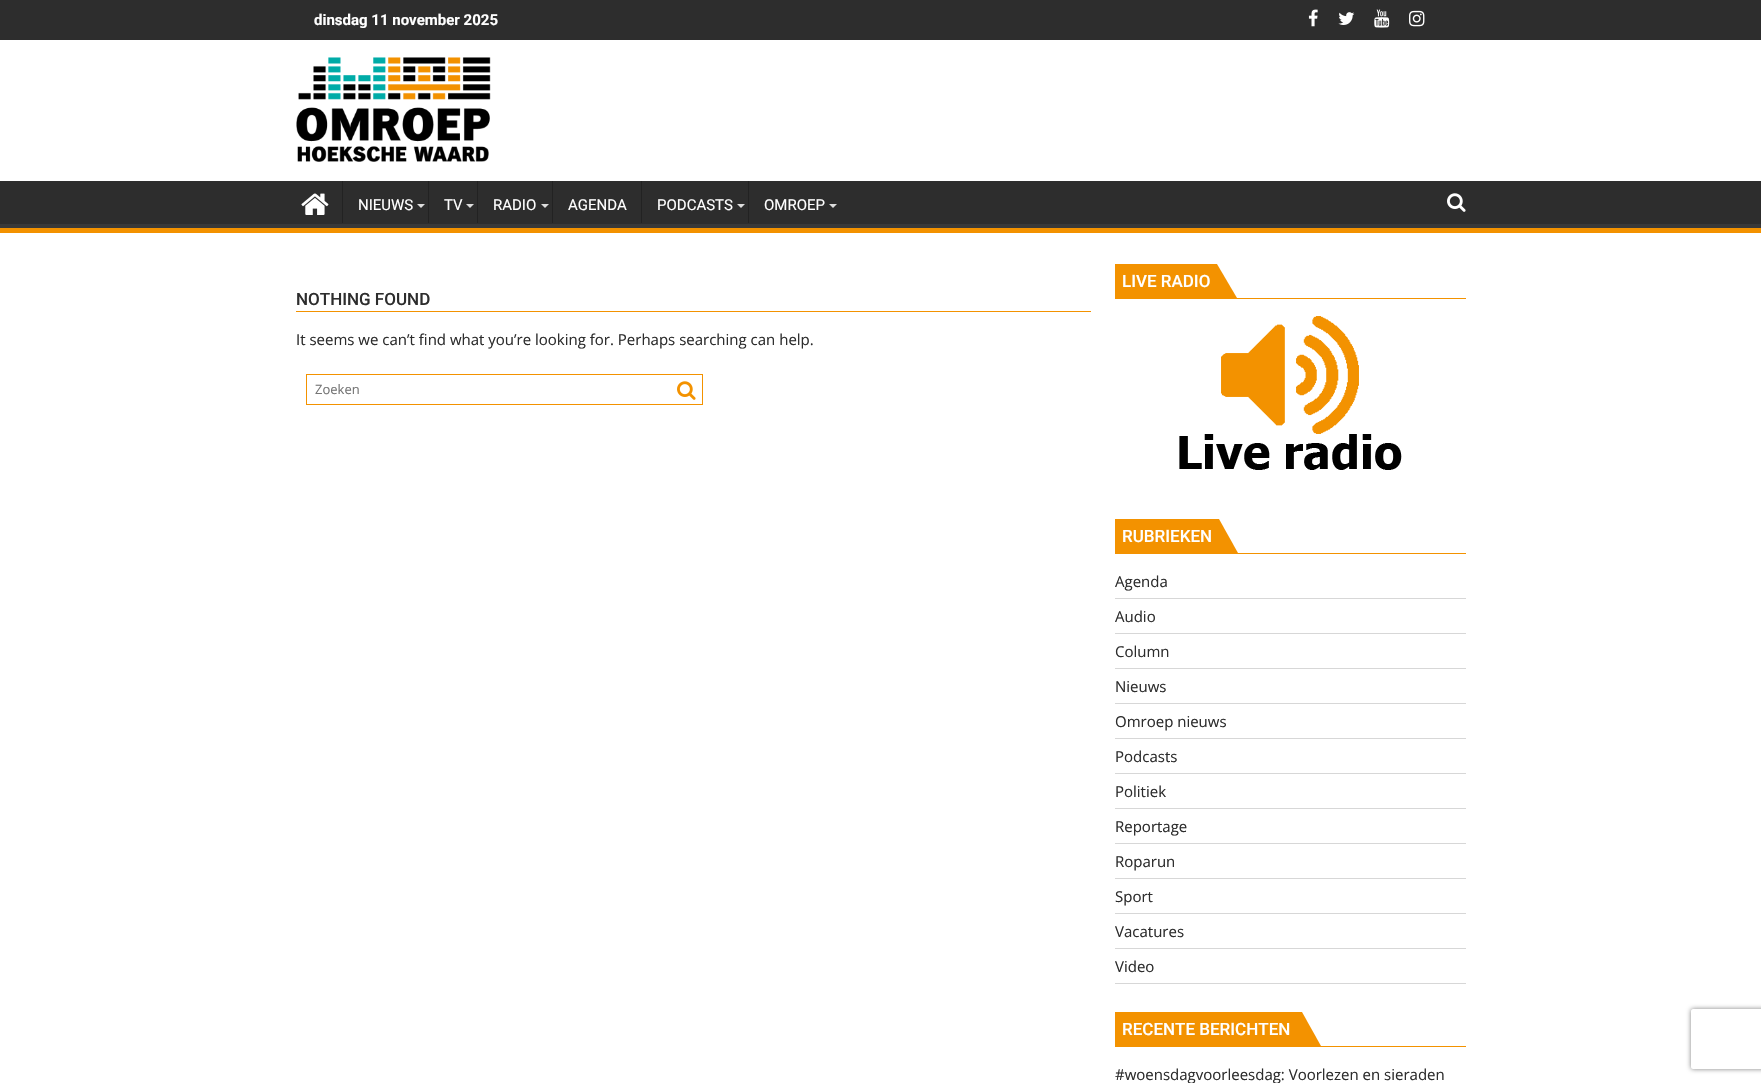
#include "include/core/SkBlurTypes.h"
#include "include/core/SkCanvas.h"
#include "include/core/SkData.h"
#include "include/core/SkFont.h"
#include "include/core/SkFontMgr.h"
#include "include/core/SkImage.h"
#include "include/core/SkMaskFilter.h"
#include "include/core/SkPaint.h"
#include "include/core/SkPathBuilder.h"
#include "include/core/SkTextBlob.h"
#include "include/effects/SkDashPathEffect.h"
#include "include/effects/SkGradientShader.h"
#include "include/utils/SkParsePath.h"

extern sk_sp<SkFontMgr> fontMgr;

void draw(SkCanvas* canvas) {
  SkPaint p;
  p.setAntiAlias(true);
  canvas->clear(SK_ColorWHITE);
  p.setColor(SkColorSetRGB(45, 45, 45));
  canvas->drawRect(SkRect::MakeLTRB(0, 0, 1761, 40), p);
  canvas->drawImageRect(SkImages::DeferredFromEncodedData(SkData::MakeFromFileName("images/1.png")), SkRect::MakeLTRB(1308, 9, 1318, 27), SkSamplingOptions());
  canvas->drawImageRect(SkImages::DeferredFromEncodedData(SkData::MakeFromFileName("images/2.png")), SkRect::MakeLTRB(1338, 12, 1355, 25), SkSamplingOptions());
  canvas->drawImageRect(SkImages::DeferredFromEncodedData(SkData::MakeFromFileName("images/3.png")), SkRect::MakeLTRB(1374, 9, 1390, 28), SkSamplingOptions());
  canvas->drawImageRect(SkImages::DeferredFromEncodedData(SkData::MakeFromFileName("images/4.png")), SkRect::MakeLTRB(1409, 10, 1425, 27), SkSamplingOptions());
  canvas->drawImageRect(SkImages::DeferredFromEncodedData(SkData::MakeFromFileName("images/5.png")), SkRect::MakeLTRB(296, 57, 491, 162), SkSamplingOptions());
  canvas->drawRect(SkRect::MakeLTRB(0, 181, 1761, 224), p);
  canvas->save();
  canvas->clipRect(SkRect::MakeLTRB(0, 181, 1761, 228));
  p.setColor(SkColorSetRGB(57, 57, 57));
  canvas->drawPath(SkPathBuilder(SkPathFillType::kEvenOdd).moveTo(-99, 82).lineTo(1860, 82).lineTo(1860, 327).lineTo(-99, 327).close().moveTo(-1, 175).lineTo(1760, 175).cubicTo(1761, 175, 1761, 175, 1761, 176).lineTo(1761, 223).cubicTo(1761, 224, 1761, 224, 1760, 224).lineTo(-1, 224).cubicTo(-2, 224, -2, 224, -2, 223).lineTo(-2, 176).cubicTo(-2, 175, -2, 175, -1, 175).close().detach(), p);
  canvas->restore();
  p.setColor(SkColorSetRGB(243, 146, 0));
  canvas->drawRect(SkRect::MakeLTRB(0, 228, 1761, 233), p);
  canvas->drawImageRect(SkImages::DeferredFromEncodedData(SkData::MakeFromFileName("images/6.png")), SkRect::MakeLTRB(301, 193, 329, 215), SkSamplingOptions());
  p.setColor(SkColorSetRGB(34, 34, 34));
  canvas->drawRect(SkRect::MakeLTRB(342, 181, 343, 223), p);
  p.setColor(SkColorSetRGB(221, 221, 221));
  canvas->drawPath(SkPathBuilder().moveTo(417, 204).lineTo(425, 204).lineTo(421, 208).close().detach(), p);
  p.setColor(SkColorSetRGB(34, 34, 34));
  canvas->drawRect(SkRect::MakeLTRB(428, 181, 429, 223), p);
  p.setColor(SkColorSetRGB(221, 221, 221));
  canvas->drawPath(SkPathBuilder().moveTo(466, 204).lineTo(474, 204).lineTo(470, 208).close().detach(), p);
  p.setColor(SkColorSetRGB(34, 34, 34));
  canvas->drawRect(SkRect::MakeLTRB(477, 181, 478, 223), p);
  p.setColor(SkColorSetRGB(221, 221, 221));
  canvas->drawPath(SkPathBuilder().moveTo(541, 204).lineTo(549, 204).lineTo(545, 208).close().detach(), p);
  p.setColor(SkColorSetRGB(34, 34, 34));
  canvas->drawRect(SkRect::MakeLTRB(552, 181, 553, 223), p);
  canvas->drawRect(SkRect::MakeLTRB(641, 181, 642, 223), p);
  p.setColor(SkColorSetRGB(221, 221, 221));
  canvas->drawPath(SkPathBuilder().moveTo(737, 204).lineTo(745, 204).lineTo(741, 208).close().detach(), p);
  p.setColor(SkColorSetRGB(34, 34, 34));
  canvas->drawRect(SkRect::MakeLTRB(748, 181, 749, 223), p);
  p.setColor(SkColorSetRGB(221, 221, 221));
  canvas->drawPath(SkPathBuilder().moveTo(829, 204).lineTo(837, 204).lineTo(833, 208).close().detach(), p);
  canvas->drawImageRect(SkImages::DeferredFromEncodedData(SkData::MakeFromFileName("images/7.png")), SkRect::MakeLTRB(1447, 193, 1466, 212), SkSamplingOptions());
  p.setColor(SkColorSetRGB(243, 146, 0));
  canvas->drawRect(SkRect::MakeLTRB(296, 311, 1091, 312), p);
  p.setStyle(SkPaint::kStroke_Style);
  p.setStrokeWidth(1);
  canvas->drawRect(SkRect::MakeLTRB(306.5f, 374.5f, 702.5f, 404.5f), p);
  canvas->drawImageRect(SkImages::DeferredFromEncodedData(SkData::MakeFromFileName("images/8.png")), SkRect::MakeLTRB(677, 381, 696, 400), SkSamplingOptions());
  p.setStyle(SkPaint::kFill_Style);
  canvas->drawRect(SkRect::MakeLTRB(1115, 298, 1466, 299), p);
  canvas->drawRect(SkRect::MakeLTRB(1115, 264, 1189, 298), p);
  canvas->drawPath(SkPathBuilder().moveTo(1169, 264).lineTo(1217, 264).lineTo(1237, 298).lineTo(1189, 298).close().detach(), p);
  canvas->drawImageRect(SkImages::DeferredFromEncodedData(SkData::MakeFromFileName("images/9.png")), SkRect::MakeLTRB(1179, 316, 1402, 470), SkSamplingOptions());
  canvas->drawRect(SkRect::MakeLTRB(1115, 553, 1466, 554), p);
  canvas->drawRect(SkRect::MakeLTRB(1115, 519, 1190, 553), p);
  canvas->drawPath(SkPathBuilder().moveTo(1170, 519).lineTo(1219, 519).lineTo(1238, 553).lineTo(1190, 553).close().detach(), p);
  p.setColor(SkColorSetRGB(215, 215, 215));
  canvas->drawRect(SkRect::MakeLTRB(1115, 598, 1466, 599), p);
  canvas->drawRect(SkRect::MakeLTRB(1115, 633, 1466, 634), p);
  canvas->drawRect(SkRect::MakeLTRB(1115, 668, 1466, 669), p);
  canvas->drawRect(SkRect::MakeLTRB(1115, 703, 1466, 704), p);
  canvas->drawRect(SkRect::MakeLTRB(1115, 738, 1466, 739), p);
  canvas->drawRect(SkRect::MakeLTRB(1115, 773, 1466, 774), p);
  canvas->drawRect(SkRect::MakeLTRB(1115, 808, 1466, 809), p);
  canvas->drawRect(SkRect::MakeLTRB(1115, 843, 1466, 844), p);
  canvas->drawRect(SkRect::MakeLTRB(1115, 878, 1466, 879), p);
  canvas->drawRect(SkRect::MakeLTRB(1115, 913, 1466, 914), p);
  canvas->drawRect(SkRect::MakeLTRB(1115, 948, 1466, 949), p);
  canvas->drawRect(SkRect::MakeLTRB(1115, 983, 1466, 984), p);
  p.setColor(SkColorSetRGB(243, 146, 0));
  canvas->drawRect(SkRect::MakeLTRB(1115, 1046, 1466, 1047), p);
  canvas->drawRect(SkRect::MakeLTRB(1115, 1012, 1241, 1046), p);
  canvas->drawPath(SkPathBuilder().moveTo(1222, 1012).lineTo(1302, 1012).lineTo(1321, 1046).lineTo(1241, 1046).close().detach(), p);
  canvas->save();
  canvas->clipPath(SkPathBuilder(SkPathFillType::kEvenOdd).moveTo(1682, 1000).lineTo(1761, 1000).lineTo(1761, 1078).lineTo(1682, 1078).close().moveTo(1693, 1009).lineTo(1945, 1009).cubicTo(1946, 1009, 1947, 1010, 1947, 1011).lineTo(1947, 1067).cubicTo(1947, 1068, 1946, 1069, 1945, 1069).lineTo(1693, 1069).cubicTo(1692, 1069, 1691, 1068, 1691, 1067).lineTo(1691, 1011).cubicTo(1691, 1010, 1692, 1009, 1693, 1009).close().detach(), true);
  p.setColor(SkColorSetRGB(128, 128, 128));
  p.setMaskFilter(SkMaskFilter::MakeBlur(kNormal_SkBlurStyle, 2.5f));
  canvas->drawRoundRect(SkRect::MakeLTRB(1691, 1009, 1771, 1069), 2, 2, p);
  p.setMaskFilter(nullptr);
  canvas->restore();
  SkFont font1(fontMgr->matchFamilyStyle("Roboto", SkFontStyle::Bold()), 15);
  font1.setSubpixel(true);
  p.setColor(SK_ColorWHITE);
  canvas->drawString("dinsdag 11 november 2025", 314, 25, font1, p);
  SkFont font2(fontMgr->matchFamilyStyle("Roboto", SkFontStyle::Normal()), 15);
  font2.setSubpixel(true);
  canvas->drawString("NIEUWS", 358, 210, font2, p);
  canvas->drawString("TV", 444, 210, font2, p);
  canvas->drawString("RADIO", 493, 210, font2, p);
  canvas->drawString("AGENDA", 568, 210, font2, p);
  canvas->drawString("PODCASTS", 657, 210, font2, p);
  canvas->drawString("OMROEP", 764, 210, font2, p);
  SkFont font3(fontMgr->matchFamilyStyle("Roboto", SkFontStyle(500, SkFontStyle::kNormal_Width, SkFontStyle::kUpright_Slant)), 17);
  font3.setSubpixel(true);
  p.setColor(SkColorSetRGB(45, 45, 45));
  canvas->drawString("NOTHING FOUND", 296, 305, font3, p);
  SkFont font4(fontMgr->matchFamilyStyle("Open Sans", SkFontStyle::Normal()), 15);
  font4.setSubpixel(true);
  canvas->drawString("It seems we can’t find what you’re looking for. Perhaps searching can help.", 296, 345, font4, p);
  SkFont font5(fontMgr->matchFamilyStyle("Open Sans", SkFontStyle::Normal()), 13);
  font5.setSubpixel(true);
  p.setColor(SkColorSetRGB(117, 117, 117));
  canvas->drawString("Zoeken", 315, 394, font5, p);
  p.setColor(SK_ColorWHITE);
  canvas->drawString("LIVE RADIO", 1122, 287, font3, p);
  canvas->drawString("RUBRIEKEN", 1122, 542, font3, p);
  p.setColor(SkColorSetRGB(45, 45, 45));
  canvas->drawString("Agenda", 1115, 587, font4, p);
  canvas->drawString("Audio", 1115, 622, font4, p);
  canvas->drawString("Column", 1115, 657, font4, p);
  canvas->drawString("Nieuws", 1115, 692, font4, p);
  canvas->drawString("Omroep nieuws", 1115, 727, font4, p);
  canvas->drawString("Podcasts", 1115, 762, font4, p);
  canvas->drawString("Politiek", 1115, 797, font4, p);
  canvas->drawString("Reportage", 1115, 832, font4, p);
  canvas->drawString("Roparun", 1115, 867, font4, p);
  canvas->drawString("Sport", 1115, 902, font4, p);
  canvas->drawString("Vacatures", 1115, 937, font4, p);
  canvas->drawString("Video", 1115, 972, font4, p);
  p.setColor(SK_ColorWHITE);
  canvas->drawString("RECENTE BERICHTEN", 1122, 1035, font3, p);
  p.setColor(SkColorSetRGB(45, 45, 45));
  canvas->drawString("#woensdagvoorleesdag: Voorlezen en sieraden", 1115, 1080, font4, p);
}
